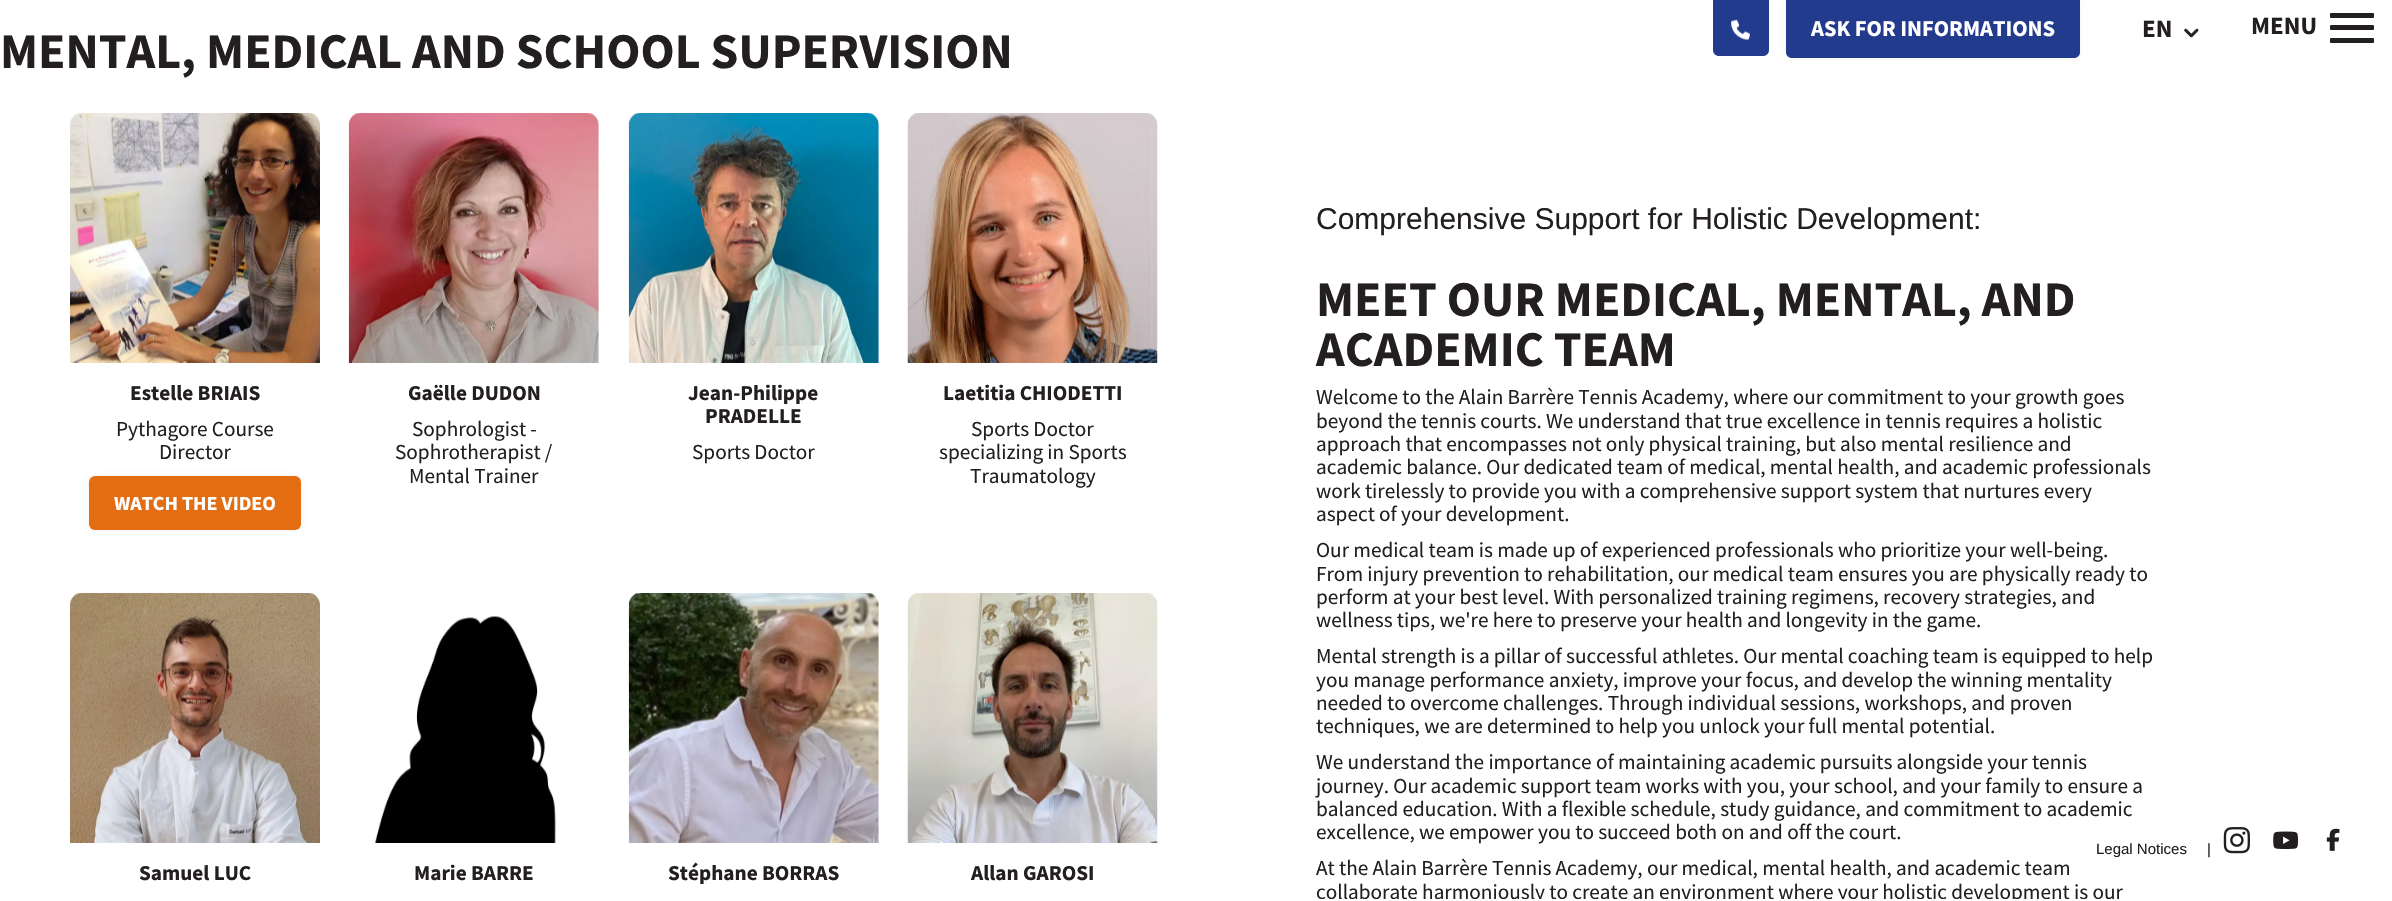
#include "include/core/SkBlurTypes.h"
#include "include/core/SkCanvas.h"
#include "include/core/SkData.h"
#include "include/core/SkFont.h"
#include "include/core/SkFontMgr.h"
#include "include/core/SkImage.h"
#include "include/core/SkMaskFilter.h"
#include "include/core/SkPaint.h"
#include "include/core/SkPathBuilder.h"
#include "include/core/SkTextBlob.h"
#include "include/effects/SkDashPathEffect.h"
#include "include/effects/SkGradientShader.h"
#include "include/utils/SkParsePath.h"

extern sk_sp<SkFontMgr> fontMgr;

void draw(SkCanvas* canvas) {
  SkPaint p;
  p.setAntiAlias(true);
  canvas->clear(SK_ColorWHITE);
  p.setColor(SkColorSetRGB(35, 59, 141));
  canvas->drawPath(SkPathBuilder().moveTo(1713, 0).lineTo(1769, 0).lineTo(1769, 50).cubicTo(1769, 53.5f, 1766.5f, 56, 1763, 56).lineTo(1719, 56).cubicTo(1715.5f, 56, 1713, 53.5f, 1713, 50).close().detach(), p);
  canvas->drawImageRect(SkImages::DeferredFromEncodedData(SkData::MakeFromFileName("images/1.png")), SkRect::MakeLTRB(1731, 19, 1750, 40), SkSamplingOptions());
  p.setColor(SkColorSetARGB(13, 0, 0, 0));
  p.setMaskFilter(SkMaskFilter::MakeBlur(kNormal_SkBlurStyle, 3));
  canvas->drawRoundRect(SkRect::MakeLTRB(1786, 0, 2080, 58), 6, 6, p);
  p.setMaskFilter(nullptr);
  p.setColor(SkColorSetRGB(35, 59, 141));
  canvas->drawPath(SkPathBuilder().moveTo(1786, 0).lineTo(2080, 0).lineTo(2080, 52).cubicTo(2080, 55.5f, 2077.5f, 58, 2074, 58).lineTo(1792, 58).cubicTo(1788.5f, 58, 1786, 55.5f, 1786, 52).close().detach(), p);
  canvas->drawImageRect(SkImages::DeferredFromEncodedData(SkData::MakeFromFileName("images/2.png")), SkRect::MakeLTRB(2184, 28, 2199, 38), SkSamplingOptions());
  p.setColor(SkColorSetRGB(35, 31, 32));
  canvas->drawRoundRect(SkRect::MakeLTRB(2330, 25, 2374, 30), 1, 1, p);
  canvas->drawRoundRect(SkRect::MakeLTRB(2330, 13, 2374, 18), 1, 1, p);
  canvas->drawRoundRect(SkRect::MakeLTRB(2330, 38, 2374, 43), 1, 1, p);
  canvas->drawImageRect(SkImages::DeferredFromEncodedData(SkData::MakeFromFileName("images/3.png")), SkRect::MakeLTRB(70, 113, 320, 363), SkSamplingOptions());
  p.setColor(SkColorSetARGB(13, 0, 0, 0));
  p.setMaskFilter(SkMaskFilter::MakeBlur(kNormal_SkBlurStyle, 3));
  canvas->drawRoundRect(SkRect::MakeLTRB(89, 476, 301, 530), 6, 6, p);
  p.setMaskFilter(nullptr);
  p.setColor(SkColorSetRGB(229, 109, 17));
  canvas->drawRoundRect(SkRect::MakeLTRB(89, 476, 301, 530), 6, 6, p);
  canvas->drawImageRect(SkImages::DeferredFromEncodedData(SkData::MakeFromFileName("images/4.png")), SkRect::MakeLTRB(348, 113, 599, 363), SkSamplingOptions());
  canvas->drawImageRect(SkImages::DeferredFromEncodedData(SkData::MakeFromFileName("images/5.png")), SkRect::MakeLTRB(628, 113, 879, 363), SkSamplingOptions());
  canvas->drawImageRect(SkImages::DeferredFromEncodedData(SkData::MakeFromFileName("images/6.png")), SkRect::MakeLTRB(907, 113, 1158, 363), SkSamplingOptions());
  canvas->drawImageRect(SkImages::DeferredFromEncodedData(SkData::MakeFromFileName("images/7.png")), SkRect::MakeLTRB(70, 593, 320, 843), SkSamplingOptions());
  canvas->drawImageRect(SkImages::DeferredFromEncodedData(SkData::MakeFromFileName("images/8.png")), SkRect::MakeLTRB(375, 616, 556, 843), SkSamplingOptions());
  canvas->drawImageRect(SkImages::DeferredFromEncodedData(SkData::MakeFromFileName("images/9.png")), SkRect::MakeLTRB(628, 593, 879, 843), SkSamplingOptions());
  canvas->drawImageRect(SkImages::DeferredFromEncodedData(SkData::MakeFromFileName("images/10.png")), SkRect::MakeLTRB(907, 593, 1158, 843), SkSamplingOptions());
  canvas->drawImageRect(SkImages::DeferredFromEncodedData(SkData::MakeFromFileName("images/11.png")), SkRect::MakeLTRB(2223, 827, 2250, 854), SkSamplingOptions());
  canvas->drawImageRect(SkImages::DeferredFromEncodedData(SkData::MakeFromFileName("images/12.png")), SkRect::MakeLTRB(2273, 831, 2299, 849), SkSamplingOptions());
  canvas->drawImageRect(SkImages::DeferredFromEncodedData(SkData::MakeFromFileName("images/13.png")), SkRect::MakeLTRB(2326, 828, 2340, 851), SkSamplingOptions());
  SkFont font1(fontMgr->matchFamilyStyle("Source Sans Pro", SkFontStyle::Bold()), 22.5f);
  font1.setSubpixel(true);
  p.setColor(SK_ColorWHITE);
  canvas->drawString("ASK FOR INFORMATIONS", 1811, 36, font1, p);
  SkFont font2(fontMgr->matchFamilyStyle("Source Sans Pro", SkFontStyle::Bold()), 25);
  font2.setSubpixel(true);
  p.setColor(SkColorSetRGB(35, 31, 32));
  canvas->drawString("EN", 2142, 37, font2, p);
  canvas->drawString("MENU", 2251, 34, font2, p);
  SkFont font3(fontMgr->matchFamilyStyle("Source Sans Pro", SkFontStyle::Bold()), 50);
  font3.setSubpixel(true);
  canvas->drawString("MENTAL, MEDICAL AND SCHOOL SUPERVISION", 0, 68, font3, p);
  SkFont font4(fontMgr->matchFamilyStyle("Source Sans Pro", SkFontStyle::Bold()), 21.25f);
  font4.setSubpixel(true);
  canvas->drawString("Estelle BRIAIS", 130, 400, font4, p);
  SkFont font5(fontMgr->matchFamilyStyle("Source Sans Pro", SkFontStyle::Normal()), 21.25f);
  font5.setSubpixel(true);
  canvas->drawString("Pythagore Course", 116, 436, font5, p);
  canvas->drawString("Director", 159, 459, font5, p);
  SkFont font6(fontMgr->matchFamilyStyle("Source Sans Pro", SkFontStyle::Bold()), 20);
  font6.setSubpixel(true);
  p.setColor(SK_ColorWHITE);
  canvas->drawString("WATCH THE VIDEO", 114, 510, font6, p);
  p.setColor(SkColorSetRGB(35, 31, 32));
  canvas->drawString("Gaëlle DUDON", 408, 400, font4, p);
  canvas->drawString("Sophrologist -", 412, 436, font5, p);
  canvas->drawString("Sophrotherapist /", 395, 459, font5, p);
  canvas->drawString("Mental Trainer", 409, 483, font5, p);
  canvas->drawString("Jean-Philippe", 688, 400, font4, p);
  canvas->drawString("PRADELLE", 705, 423, font4, p);
  canvas->drawString("Sports Doctor", 692, 459, font5, p);
  canvas->drawString("Laetitia CHIODETTI", 943, 400, font4, p);
  canvas->drawString("Sports Doctor", 971, 436, font5, p);
  canvas->drawString("specializing in Sports", 939, 459, font5, p);
  canvas->drawString("Traumatology", 970, 483, font5, p);
  canvas->drawString("Samuel LUC", 139, 880, font4, p);
  canvas->drawString("Marie BARRE", 414, 880, font4, p);
  canvas->drawString("Stéphane BORRAS", 668, 880, font4, p);
  canvas->drawString("Allan GAROSI", 971, 880, font4, p);
  SkFont font7(fontMgr->matchFamilyStyle("Liberation Sans", SkFontStyle::Normal()), 30);
  font7.setSubpixel(true);
  canvas->drawString("Comprehensive Support for Holistic Development:", 1316, 229, font7, p);
  canvas->drawString("MEET OUR MEDICAL, MENTAL, AND", 1316, 316, font3, p);
  canvas->drawString("ACADEMIC TEAM", 1316, 366, font3, p);
  canvas->drawString("Welcome to the Alain Barrère Tennis Academy, where our commitment to your growth goes", 1316, 404, font5, p);
  canvas->drawString("beyond the tennis courts. We understand that true excellence in tennis requires a holistic", 1316, 428, font5, p);
  canvas->drawString("approach that encompasses not only physical training, but also mental resilience and", 1316, 451, font5, p);
  canvas->drawString("academic balance. Our dedicated team of medical, mental health, and academic professionals", 1316, 474, font5, p);
  canvas->drawString("work tirelessly to provide you with a comprehensive support system that nurtures every", 1316, 498, font5, p);
  canvas->drawString("aspect of your development.", 1316, 521, font5, p);
  canvas->drawString("Our medical team is made up of experienced professionals who prioritize your well-being.", 1316, 557, font5, p);
  canvas->drawString("From injury prevention to rehabilitation, our medical team ensures you are physically ready to", 1316, 581, font5, p);
  canvas->drawString("perform at your best level. With personalized training regimens, recovery strategies, and", 1316, 604, font5, p);
  canvas->drawString("wellness tips, we're here to preserve your health and longevity in the game.", 1316, 627, font5, p);
  canvas->drawString("Mental strength is a pillar of successful athletes. Our mental coaching team is equipped to help", 1316, 663, font5, p);
  canvas->drawString("you manage performance anxiety, improve your focus, and develop the winning mentality", 1316, 687, font5, p);
  canvas->drawString("needed to overcome challenges. Through individual sessions, workshops, and proven", 1316, 710, font5, p);
  canvas->drawString("techniques, we are determined to help you unlock your full mental potential.", 1316, 733, font5, p);
  canvas->drawString("We understand the importance of maintaining academic pursuits alongside your tennis", 1316, 769, font5, p);
  canvas->drawString("journey. Our academic support team works with you, your school, and your family to ensure a", 1316, 793, font5, p);
  canvas->drawString("balanced education. With a flexible schedule, study guidance, and commitment to academic", 1316, 816, font5, p);
  canvas->drawString("excellence, we empower you to succeed both on and off the court.", 1316, 839, font5, p);
  canvas->drawString("At the Alain Barrère Tennis Academy, our medical, mental health, and academic team", 1316, 875, font5, p);
  canvas->save();
  canvas->clipRect(SkRect::MakeLTRB(1196, 178, 2154, 899));
  canvas->drawString("collaborate harmoniously to create an environment where your holistic development is our", 1316, 899, font5, p);
  canvas->restore();
  SkFont font8(fontMgr->matchFamilyStyle("Liberation Sans", SkFontStyle::Normal()), 15);
  font8.setSubpixel(true);
  canvas->drawString("Legal Notices", 2096, 854, font8, p);
  canvas->drawString("|", 2207, 854, font8, p);
  canvas->drawImageRect(SkImages::DeferredFromEncodedData(SkData::MakeFromFileName("images/14.png")), SkRect::MakeLTRB(204, 865, 218, 867), SkSamplingOptions());
}
